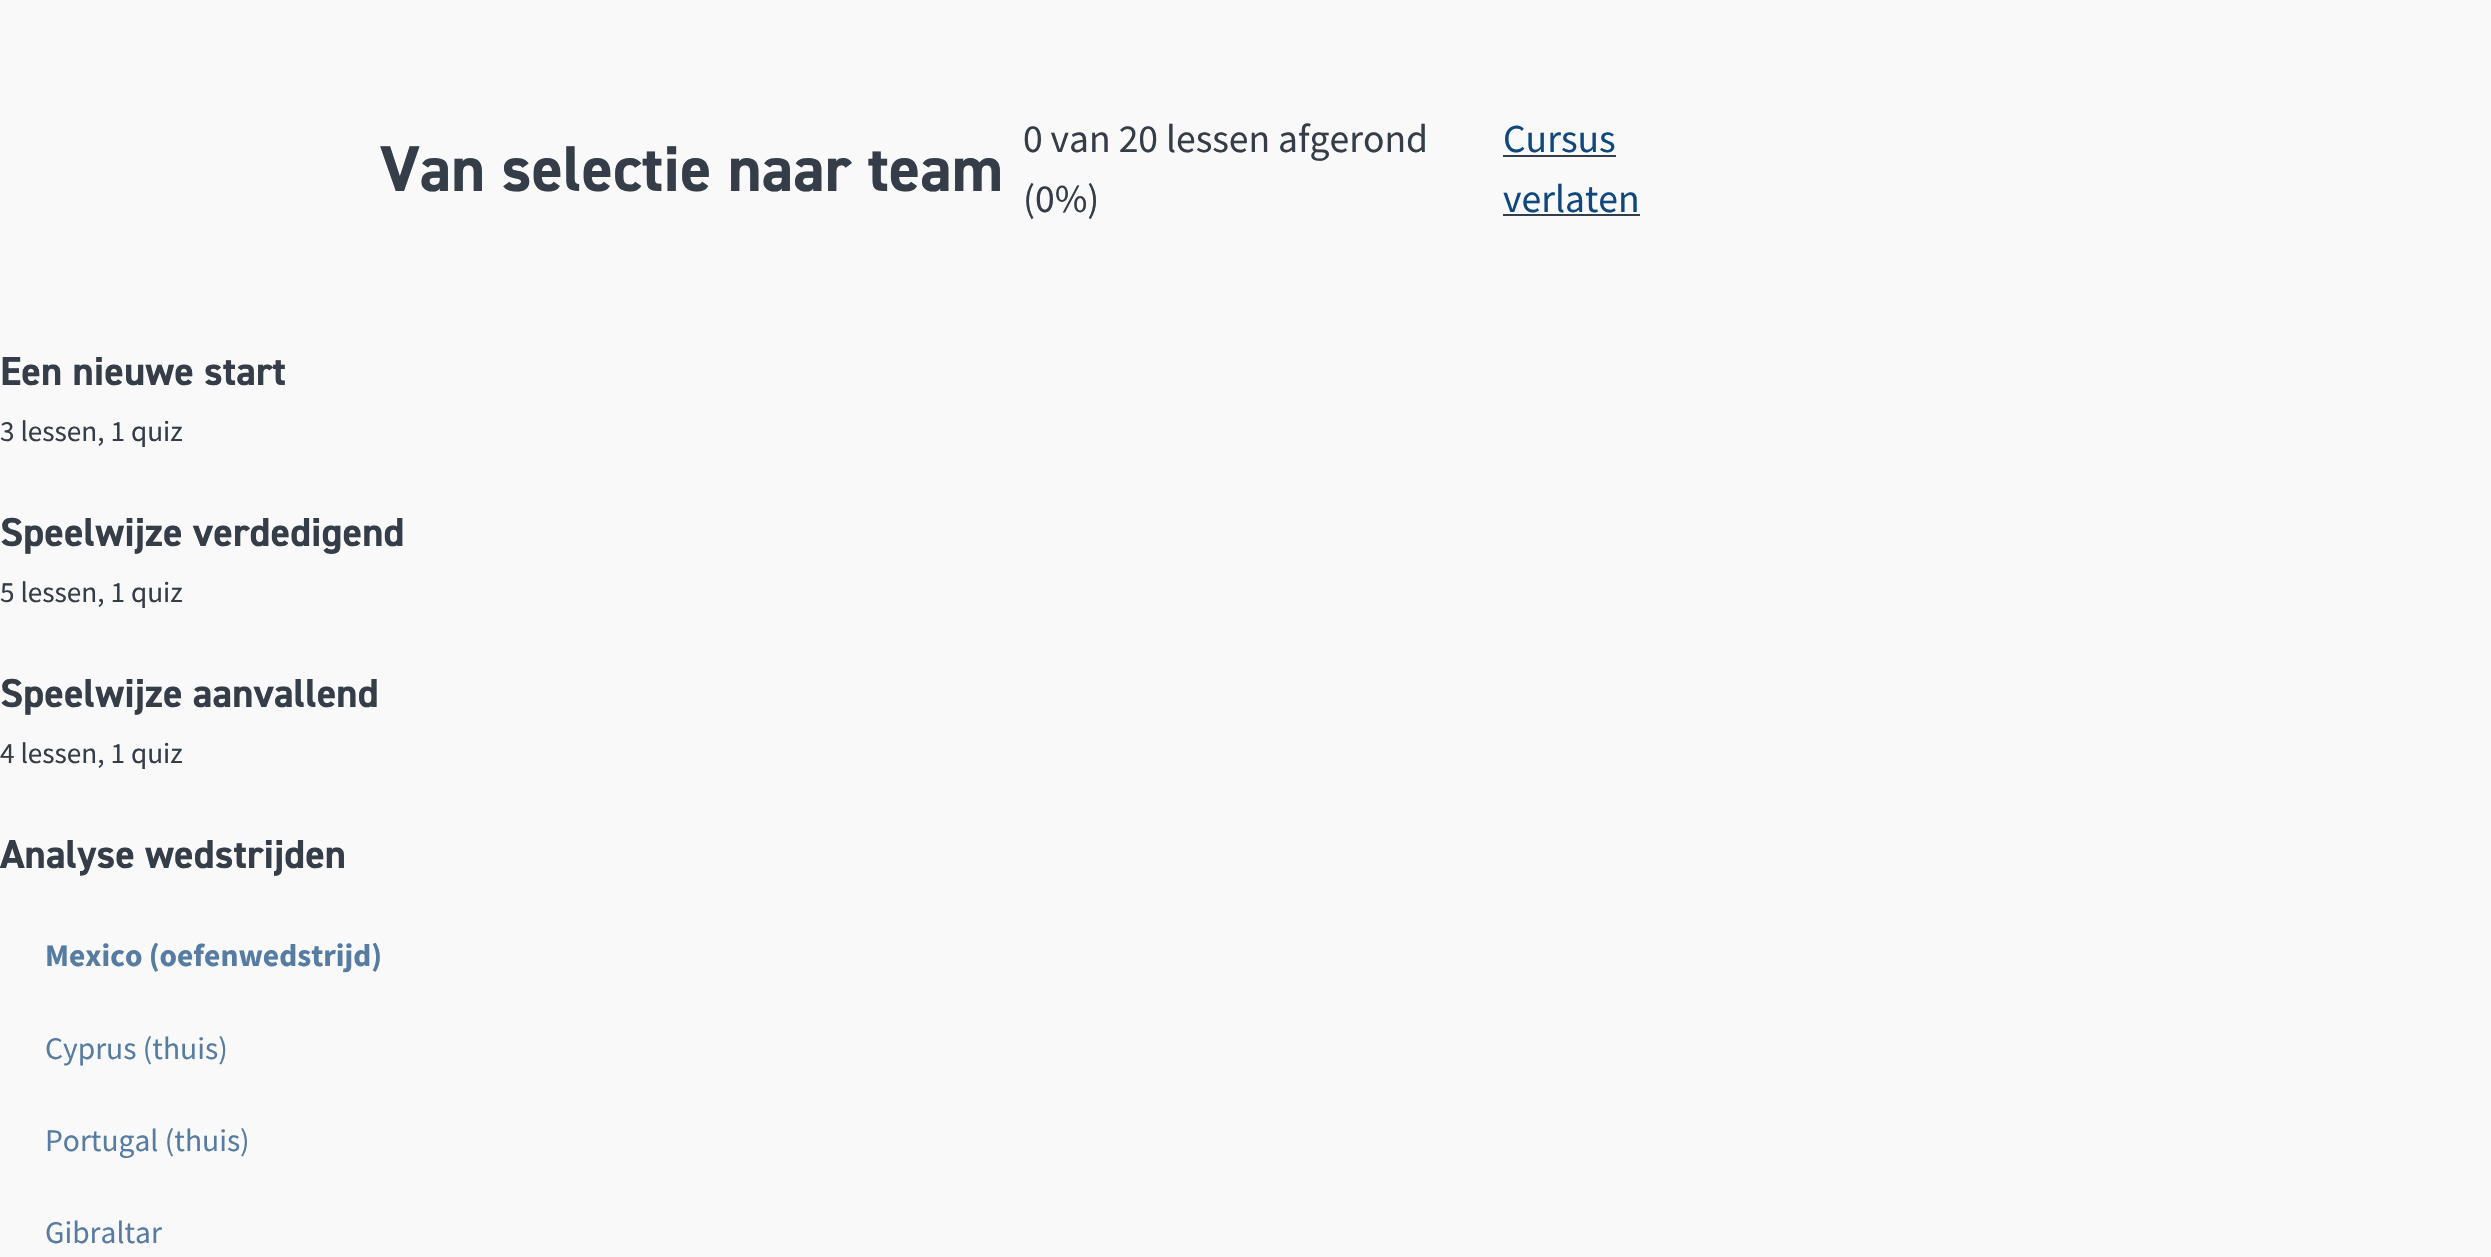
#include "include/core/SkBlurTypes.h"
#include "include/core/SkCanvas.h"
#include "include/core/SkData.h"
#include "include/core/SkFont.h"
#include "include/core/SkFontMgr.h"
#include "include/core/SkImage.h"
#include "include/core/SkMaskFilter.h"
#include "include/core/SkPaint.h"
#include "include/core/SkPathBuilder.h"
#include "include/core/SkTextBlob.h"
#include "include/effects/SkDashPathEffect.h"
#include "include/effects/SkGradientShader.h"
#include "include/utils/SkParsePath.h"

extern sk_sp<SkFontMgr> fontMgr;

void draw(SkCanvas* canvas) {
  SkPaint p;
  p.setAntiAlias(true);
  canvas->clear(SkColorSetRGB(249, 249, 249));
  p.setColor(SkColorSetRGB(52, 61, 72));
  canvas->drawRect(SkRect::MakeLTRB(1503, 155, 1616, 157), p);
  canvas->drawRect(SkRect::MakeLTRB(1503, 214, 1640, 216), p);
  SkFont font1(fontMgr->matchFamilyStyle("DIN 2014", SkFontStyle::Bold()), 64.75f);
  font1.setSubpixel(true);
  canvas->drawString("Van selectie naar team", 380, 191, font1, p);
  SkFont font2(fontMgr->matchFamilyStyle("Source Sans Pro", SkFontStyle::Normal()), 39.6f);
  font2.setSubpixel(true);
  canvas->drawString("0 van 20 lessen afgerond", 1023, 152, font2, p);
  canvas->drawString("(0%)", 1023, 212, font2, p);
  p.setColor(SkColorSetRGB(16, 71, 125));
  canvas->drawString("Cursus", 1503, 152, font2, p);
  canvas->drawString("verlaten", 1503, 212, font2, p);
  SkFont font3(fontMgr->matchFamilyStyle("DIN 2014", SkFontStyle::Bold()), 40.5f);
  font3.setSubpixel(true);
  p.setColor(SkColorSetRGB(52, 61, 72));
  canvas->drawString("Een nieuwe start", 0, 385, font3, p);
  SkFont font4(fontMgr->matchFamilyStyle("Source Sans Pro", SkFontStyle::Normal()), 29.25f);
  font4.setSubpixel(true);
  canvas->drawString("3 lessen, 1 quiz", 0, 441, font4, p);
  canvas->drawString("Speelwijze verdedigend", 0, 546, font3, p);
  canvas->drawString("5 lessen, 1 quiz", 0, 602, font4, p);
  canvas->drawString("Speelwijze aanvallend", 0, 707, font3, p);
  canvas->drawString("4 lessen, 1 quiz", 0, 763, font4, p);
  canvas->drawString("Analyse wedstrijden", 0, 868, font3, p);
  SkFont font5(fontMgr->matchFamilyStyle("Source Sans Pro", SkFontStyle::Bold()), 31.5f);
  font5.setSubpixel(true);
  p.setColor(SkColorSetRGB(86, 124, 162));
  canvas->drawString("Mexico (oefenwedstrijd)", 45, 966, font5, p);
  SkFont font6(fontMgr->matchFamilyStyle("Source Sans Pro", SkFontStyle::Normal()), 31.5f);
  font6.setSubpixel(true);
  canvas->drawString("Cyprus (thuis)", 45, 1059, font6, p);
  canvas->drawString("Portugal (thuis)", 45, 1151, font6, p);
  canvas->drawString("Gibraltar", 45, 1243, font6, p);
}
